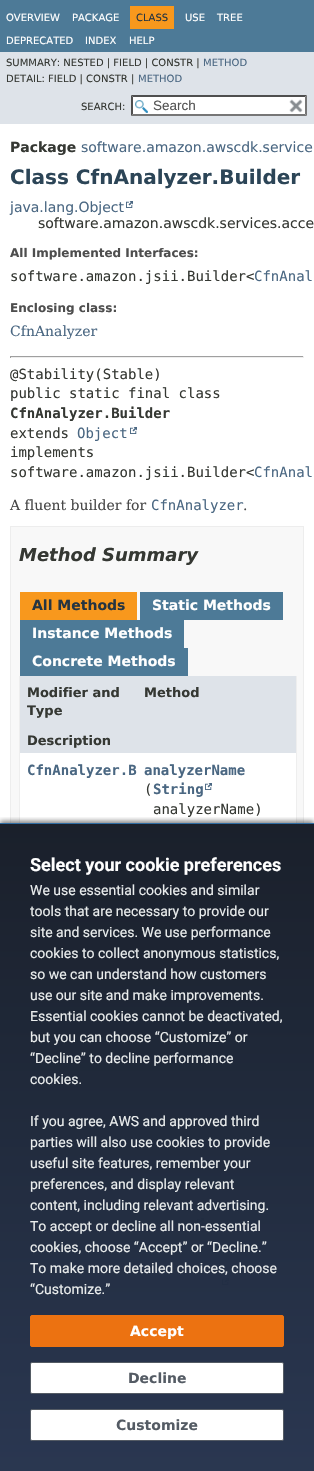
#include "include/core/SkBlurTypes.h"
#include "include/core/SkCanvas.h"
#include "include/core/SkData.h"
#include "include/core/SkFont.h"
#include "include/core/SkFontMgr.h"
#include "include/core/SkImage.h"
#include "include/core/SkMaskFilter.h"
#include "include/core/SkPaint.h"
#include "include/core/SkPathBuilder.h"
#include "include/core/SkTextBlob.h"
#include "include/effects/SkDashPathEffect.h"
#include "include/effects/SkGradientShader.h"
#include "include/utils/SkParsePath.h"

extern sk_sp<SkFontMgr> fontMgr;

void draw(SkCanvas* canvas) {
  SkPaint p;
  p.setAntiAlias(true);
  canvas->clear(SK_ColorWHITE);
  p.setColor(SkColorSetRGB(77, 122, 151));
  canvas->drawRect(SkRect::MakeLTRB(0, 0, 314, 52), p);
  p.setColor(SkColorSetRGB(248, 152, 29));
  canvas->drawRect(SkRect::MakeLTRB(130, 6, 174, 29), p);
  p.setColor(SkColorSetRGB(222, 227, 233));
  canvas->drawRect(SkRect::MakeLTRB(0, 52, 314, 124), p);
  p.setColor(SK_ColorWHITE);
  canvas->drawRect(SkRect::MakeLTRB(131, 95, 307, 116), p);
  canvas->drawImageRect(SkImages::DeferredFromEncodedData(SkData::MakeFromFileName("images/1.png")), SkRect::MakeLTRB(135, 100, 148, 113), SkSamplingOptions());
  p.setColor(SkColorSetRGB(79, 79, 79));
  canvas->drawPath(SkPathBuilder().moveTo(131, 95).lineTo(307, 95).lineTo(305, 97).lineTo(133, 97).close().detach(), p);
  p.setColor(SkColorSetRGB(118, 118, 118));
  canvas->drawPath(SkPathBuilder().moveTo(307, 95).lineTo(307, 116).lineTo(305, 114).lineTo(305, 97).close().detach(), p);
  canvas->drawPath(SkPathBuilder().moveTo(307, 116).lineTo(131, 116).lineTo(133, 114).lineTo(305, 114).close().detach(), p);
  p.setColor(SkColorSetRGB(79, 79, 79));
  canvas->drawPath(SkPathBuilder().moveTo(131, 116).lineTo(131, 95).lineTo(133, 97).lineTo(133, 114).close().detach(), p);
  canvas->drawImageRect(SkImages::DeferredFromEncodedData(SkData::MakeFromFileName("images/2.png")), SkRect::MakeLTRB(289, 99, 303, 113), SkSamplingOptions());
  canvas->drawImageRect(SkImages::DeferredFromEncodedData(SkData::MakeFromFileName("images/3.png")), SkRect::MakeLTRB(126, 201, 133, 208), SkSamplingOptions());
  p.setColor(SkColorSetRGB(159, 159, 159));
  canvas->drawRect(SkRect::MakeLTRB(10, 356, 304, 357), p);
  p.setColor(SkColorSetRGB(238, 238, 238));
  canvas->drawRect(SkRect::MakeLTRB(303, 356, 304, 358), p);
  canvas->drawRect(SkRect::MakeLTRB(10, 357, 304, 358), p);
  p.setColor(SkColorSetRGB(159, 159, 159));
  canvas->drawRect(SkRect::MakeLTRB(10, 356, 11, 358), p);
  canvas->drawImageRect(SkImages::DeferredFromEncodedData(SkData::MakeFromFileName("images/3.png")), SkRect::MakeLTRB(130, 427, 137, 434), SkSamplingOptions());
  p.setColor(SkColorSetRGB(248, 248, 248));
  canvas->drawRect(SkRect::MakeLTRB(10.5f, 526.5f, 303.5f, 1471.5f), p);
  p.setStyle(SkPaint::kStroke_Style);
  p.setStrokeWidth(1);
  p.setColor(SkColorSetRGB(237, 237, 237));
  canvas->drawRect(SkRect::MakeLTRB(10.5f, 526.5f, 303.5f, 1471.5f), p);
  p.setStyle(SkPaint::kFill_Style);
  p.setColor(SkColorSetRGB(248, 152, 29));
  canvas->drawRect(SkRect::MakeLTRB(20, 592, 137, 620), p);
  p.setColor(SkColorSetRGB(77, 122, 151));
  canvas->drawRect(SkRect::MakeLTRB(140, 592, 283, 620), p);
  canvas->drawRect(SkRect::MakeLTRB(20, 620, 184, 648), p);
  canvas->drawRect(SkRect::MakeLTRB(20, 648, 188, 676), p);
  p.setColor(SkColorSetRGB(238, 238, 238));
  canvas->drawRect(SkRect::MakeLTRB(296, 676, 297, 1471), p);
  canvas->drawRect(SkRect::MakeLTRB(19, 676, 20, 1471), p);
  p.setColor(SkColorSetRGB(222, 227, 233));
  canvas->drawRect(SkRect::MakeLTRB(20, 676, 296, 724), p);
  canvas->drawRect(SkRect::MakeLTRB(20, 724, 296, 753), p);
  p.setColor(SK_ColorWHITE);
  canvas->drawRect(SkRect::MakeLTRB(20, 753, 296, 822), p);
  canvas->drawImageRect(SkImages::DeferredFromEncodedData(SkData::MakeFromFileName("images/3.png")), SkRect::MakeLTRB(205, 783, 212, 790), SkSamplingOptions());
  canvas->drawRect(SkRect::MakeLTRB(20, 822, 296, 858), p);
  p.setColor(SkColorSetRGB(238, 238, 239));
  canvas->drawRect(SkRect::MakeLTRB(20, 858, 296, 947), p);
  canvas->drawImageRect(SkImages::DeferredFromEncodedData(SkData::MakeFromFileName("images/4.png")), SkRect::MakeLTRB(146, 889, 153, 896), SkSamplingOptions());
  canvas->drawImageRect(SkImages::DeferredFromEncodedData(SkData::MakeFromFileName("images/4.png")), SkRect::MakeLTRB(197, 908, 204, 915), SkSamplingOptions());
  canvas->drawRect(SkRect::MakeLTRB(20, 947, 296, 1003), p);
  p.setColor(SK_ColorWHITE);
  canvas->drawRect(SkRect::MakeLTRB(20, 1003, 296, 1053), p);
  canvas->drawRect(SkRect::MakeLTRB(20, 1053, 296, 1108), p);
  p.setColor(SkColorSetRGB(238, 238, 239));
  canvas->drawRect(SkRect::MakeLTRB(20, 1108, 296, 1139), p);
  canvas->drawRect(SkRect::MakeLTRB(20, 1139, 296, 1168), p);
  p.setColor(SK_ColorWHITE);
  canvas->drawRect(SkRect::MakeLTRB(20, 1168, 296, 1238), p);
  canvas->drawImageRect(SkImages::DeferredFromEncodedData(SkData::MakeFromFileName("images/3.png")), SkRect::MakeLTRB(197, 1218, 204, 1225), SkSamplingOptions());
  canvas->drawRect(SkRect::MakeLTRB(20, 1238, 296, 1267), p);
  p.setColor(SkColorSetRGB(238, 238, 239));
  canvas->drawRect(SkRect::MakeLTRB(20, 1267, 296, 1337), p);
  canvas->drawImageRect(SkImages::DeferredFromEncodedData(SkData::MakeFromFileName("images/4.png")), SkRect::MakeLTRB(222, 1278, 229, 1285), SkSamplingOptions());
  canvas->drawRect(SkRect::MakeLTRB(20, 1337, 296, 1372), p);
  p.setColor(SK_ColorWHITE);
  canvas->drawRect(SkRect::MakeLTRB(20, 1372, 296, 1422), p);
  canvas->drawRect(SkRect::MakeLTRB(20, 1422, 296, 1471), p);
  canvas->save();
  canvas->clipRect(SkRect::MakeLTRB(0, 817, 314, 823));
  p.setColor(SkColorSetARGB(128, 0, 0, 0));
  p.setMaskFilter(SkMaskFilter::MakeBlur(kNormal_SkBlurStyle, 2.5f));
  canvas->drawRect(SkRect::MakeLTRB(0, 821, 314, 1469), p);
  p.setMaskFilter(nullptr);
  canvas->restore();
  {
    const SkColor colors[] = {SkColorSetARGB(250, 21, 28, 39), SkColorSetARGB(250, 38, 51, 77)};
    const float stops[] = {0, 1};
    const SkPoint ends[] = {{157, 824}, {157, 1471}};
    p.setShader(SkGradientShader::MakeLinear(ends, colors, stops, 2, SkTileMode::kClamp));
    p.setAlpha(255);
  }
  canvas->drawRect(SkRect::MakeLTRB(0, 824, 314, 1471), p);
  p.setShader(nullptr);
  p.setColor(SkColorSetRGB(48, 109, 163));
  canvas->drawRect(SkRect::MakeLTRB(0, 823, 314, 824), p);
  p.setColor(SkColorSetRGB(236, 114, 17));
  canvas->drawRoundRect(SkRect::MakeLTRB(30.5f, 1315.5f, 283.5f, 1346.5f), 1.5f, 1.5f, p);
  p.setStyle(SkPaint::kStroke_Style);
  canvas->drawRoundRect(SkRect::MakeLTRB(30.5f, 1315.5f, 283.5f, 1346.5f), 1.5f, 1.5f, p);
  p.setStyle(SkPaint::kFill_Style);
  p.setColor(SK_ColorWHITE);
  canvas->drawRoundRect(SkRect::MakeLTRB(30.5f, 1362.5f, 283.5f, 1393.5f), 1.5f, 1.5f, p);
  p.setStyle(SkPaint::kStroke_Style);
  p.setColor(SkColorSetRGB(84, 91, 100));
  canvas->drawRoundRect(SkRect::MakeLTRB(30.5f, 1362.5f, 283.5f, 1393.5f), 1.5f, 1.5f, p);
  p.setStyle(SkPaint::kFill_Style);
  p.setColor(SK_ColorWHITE);
  canvas->drawRoundRect(SkRect::MakeLTRB(30.5f, 1409.5f, 283.5f, 1440.5f), 1.5f, 1.5f, p);
  p.setStyle(SkPaint::kStroke_Style);
  p.setColor(SkColorSetRGB(84, 91, 100));
  canvas->drawRoundRect(SkRect::MakeLTRB(30.5f, 1409.5f, 283.5f, 1440.5f), 1.5f, 1.5f, p);
  SkFont font1(fontMgr->matchFamilyStyle("DejaVu Sans", SkFontStyle::Normal()), 10);
  font1.setSubpixel(true);
  p.setStyle(SkPaint::kFill_Style);
  p.setColor(SK_ColorWHITE);
  canvas->drawString("OVERVIEW", 6, 21, font1, p);
  canvas->drawString("PACKAGE", 72, 21, font1, p);
  p.setColor(SkColorSetRGB(37, 52, 65));
  canvas->drawString("CLASS", 136, 21, font1, p);
  p.setColor(SK_ColorWHITE);
  canvas->drawString("USE", 185, 21, font1, p);
  canvas->drawString("TREE", 217, 21, font1, p);
  canvas->drawString("DEPRECATED", 6, 44, font1, p);
  canvas->drawString("INDEX", 85, 44, font1, p);
  canvas->drawString("HELP", 129, 44, font1, p);
  p.setColor(SkColorSetRGB(53, 56, 51));
  canvas->drawString("SUMMARY: NESTED | FIELD | CONSTR |", 6, 66, font1, p);
  p.setColor(SkColorSetRGB(74, 103, 130));
  canvas->drawString("METHOD", 203, 66, font1, p);
  p.setColor(SkColorSetRGB(53, 56, 51));
  canvas->drawString("DETAIL: FIELD | CONSTR |", 6, 82, font1, p);
  p.setColor(SkColorSetRGB(74, 103, 130));
  canvas->drawString("METHOD", 138, 82, font1, p);
  p.setColor(SkColorSetRGB(53, 56, 51));
  canvas->drawString("SEARCH:", 81, 110, font1, p);
  SkFont font2(fontMgr->matchFamilyStyle("Liberation Sans", SkFontStyle::Normal()), 13.5f);
  font2.setSubpixel(true);
  p.setColor(SkColorSetRGB(84, 84, 84));
  canvas->drawString("Search", 153, 110, font2, p);
  SkFont font3(fontMgr->matchFamilyStyle("DejaVu Sans", SkFontStyle::Bold()), 14);
  font3.setSubpixel(true);
  p.setColor(SkColorSetRGB(53, 56, 51));
  canvas->drawString("Package", 10, 152, font3, p);
  SkFont font4(fontMgr->matchFamilyStyle("DejaVu Sans", SkFontStyle::Normal()), 14);
  font4.setSubpixel(true);
  p.setColor(SkColorSetRGB(74, 103, 130));
  canvas->drawString("software.amazon.awscdk.service", 81, 152, font4, p);
  SkFont font5(fontMgr->matchFamilyStyle("DejaVu Sans", SkFontStyle::Bold()), 20);
  font5.setSubpixel(true);
  p.setColor(SkColorSetRGB(44, 69, 87));
  canvas->drawString("Class CfnAnalyzer.Builder", 10, 184, font5, p);
  p.setColor(SkColorSetRGB(74, 103, 130));
  canvas->drawString("java.lang.Object", 10, 212, font4, p);
  p.setColor(SkColorSetRGB(53, 56, 51));
  canvas->drawString("software.amazon.awscdk.services.acce", 38, 228, font4, p);
  SkFont font6(fontMgr->matchFamilyStyle("DejaVu Sans", SkFontStyle::Bold()), 12);
  font6.setSubpixel(true);
  p.setColor(SkColorSetRGB(78, 78, 78));
  canvas->drawString("All Implemented Interfaces:", 10, 257, font6, p);
  SkFont font7(fontMgr->matchFamilyStyle("DejaVu Sans Mono", SkFontStyle::Normal()), 14);
  font7.setSubpixel(true);
  p.setColor(SkColorSetRGB(53, 56, 51));
  canvas->drawString("software.amazon.jsii.Builder<", 10, 281, font7, p);
  p.setColor(SkColorSetRGB(74, 103, 130));
  canvas->drawString("CfnAnal", 254, 281, font7, p);
  p.setColor(SkColorSetRGB(78, 78, 78));
  canvas->drawString("Enclosing class:", 10, 312, font6, p);
  SkFont font8(fontMgr->matchFamilyStyle("DejaVu Serif", SkFontStyle::Normal()), 14);
  font8.setSubpixel(true);
  p.setColor(SkColorSetRGB(74, 103, 130));
  canvas->drawString("CfnAnalyzer", 10, 336, font8, p);
  p.setColor(SkColorSetRGB(53, 56, 51));
  canvas->drawString("@Stability(Stable)", 10, 379, font7, p);
  canvas->drawString("public static final class", 10, 398, font7, p);
  SkFont font9(fontMgr->matchFamilyStyle("DejaVu Sans Mono", SkFontStyle::Bold()), 14);
  font9.setSubpixel(true);
  canvas->drawString("CfnAnalyzer.Builder", 10, 418, font9, p);
  canvas->drawString("extends", 10, 438, font7, p);
  p.setColor(SkColorSetRGB(74, 103, 130));
  canvas->drawString("Object", 77, 438, font7, p);
  p.setColor(SkColorSetRGB(53, 56, 51));
  canvas->drawString("implements", 10, 457, font7, p);
  canvas->drawString("software.amazon.jsii.Builder<", 10, 477, font7, p);
  p.setColor(SkColorSetRGB(74, 103, 130));
  canvas->drawString("CfnAnal", 254, 477, font7, p);
  p.setColor(SkColorSetRGB(71, 71, 71));
  canvas->drawString("A fluent builder for", 10, 510, font8, p);
  p.setColor(SkColorSetRGB(74, 103, 130));
  canvas->drawString("CfnAnalyzer", 151, 510, font7, p);
  p.setColor(SkColorSetRGB(71, 71, 71));
  canvas->drawString(".", 243, 510, font8, p);
  SkFont font10(fontMgr->matchFamilyStyle("DejaVu Sans", SkFontStyle::BoldItalic()), 18);
  font10.setSubpixel(true);
  p.setColor(SkColorSetRGB(53, 56, 51));
  canvas->drawString("Method Summary", 19, 561, font10, p);
  p.setColor(SkColorSetRGB(37, 52, 65));
  canvas->drawString("All Methods", 32, 610, font3, p);
  p.setColor(SK_ColorWHITE);
  canvas->drawString("Static Methods", 152, 610, font3, p);
  canvas->drawString("Instance Methods", 32, 638, font3, p);
  canvas->drawString("Concrete Methods", 32, 666, font3, p);
  SkFont font11(fontMgr->matchFamilyStyle("DejaVu Sans", SkFontStyle::Bold()), 13);
  font11.setSubpixel(true);
  p.setColor(SkColorSetRGB(53, 56, 51));
  canvas->drawString("Modifier and", 27, 697, font11, p);
  canvas->drawString("Type", 27, 715, font11, p);
  canvas->drawString("Method", 144, 697, font11, p);
  canvas->drawString("Description", 27, 745, font11, p);
  p.setColor(SkColorSetRGB(74, 103, 130));
  canvas->drawString("CfnAnalyzer.B", 27, 775, font9, p);
  canvas->drawString("analyzerName", 144, 775, font9, p);
  p.setColor(SkColorSetRGB(53, 56, 51));
  canvas->drawString("(", 144, 794, font7, p);
  p.setColor(SkColorSetRGB(74, 103, 130));
  canvas->drawString("String", 153, 794, font9, p);
  p.setColor(SkColorSetRGB(53, 56, 51));
  canvas->drawString("analyzerName)", 153, 814, font7, p);
  SkFont font12(fontMgr->matchFamilyStyle("Roboto", SkFontStyle::Bold()), 18);
  font12.setSubpixel(true);
  p.setColor(SK_ColorWHITE);
  canvas->drawString("Select your cookie preferences", 30, 871, font12, p);
  SkFont font13(fontMgr->matchFamilyStyle("Roboto", SkFontStyle::Normal()), 14);
  font13.setSubpixel(true);
  p.setColor(SkColorSetRGB(234, 237, 237));
  canvas->drawString("We use essential cookies and similar", 30, 895, font13, p);
  canvas->drawString("tools that are necessary to provide our", 30, 916, font13, p);
  canvas->drawString("site and services. We use performance", 30, 937, font13, p);
  canvas->drawString("cookies to collect anonymous statistics,", 30, 958, font13, p);
  canvas->drawString("so we can understand how customers", 30, 979, font13, p);
  canvas->drawString("use our site and make improvements.", 30, 1000, font13, p);
  canvas->drawString("Essential cookies cannot be deactivated,", 30, 1021, font13, p);
  canvas->drawString("but you can choose “Customize” or", 30, 1042, font13, p);
  canvas->drawString("“Decline” to decline performance", 30, 1063, font13, p);
  canvas->drawString("cookies.", 30, 1084, font13, p);
  canvas->drawString("If you agree, AWS and approved third", 30, 1126, font13, p);
  canvas->drawString("parties will also use cookies to provide", 30, 1147, font13, p);
  canvas->drawString("useful site features, remember your", 30, 1168, font13, p);
  canvas->drawString("preferences, and display relevant", 30, 1189, font13, p);
  canvas->drawString("content, including relevant advertising.", 30, 1210, font13, p);
  canvas->drawString("To accept or decline all non-essential", 30, 1231, font13, p);
  canvas->drawString("cookies, choose “Accept” or “Decline.”", 30, 1252, font13, p);
  canvas->drawString("To make more detailed choices, choose", 30, 1273, font13, p);
  canvas->drawString("“Customize.”", 30, 1294, font13, p);
  p.setColor(SK_ColorWHITE);
  canvas->drawString("Accept", 130, 1336, font3, p);
  p.setColor(SkColorSetRGB(84, 91, 100));
  canvas->drawString("Decline", 128, 1383, font3, p);
  canvas->drawString("Customize", 116, 1430, font3, p);
}
